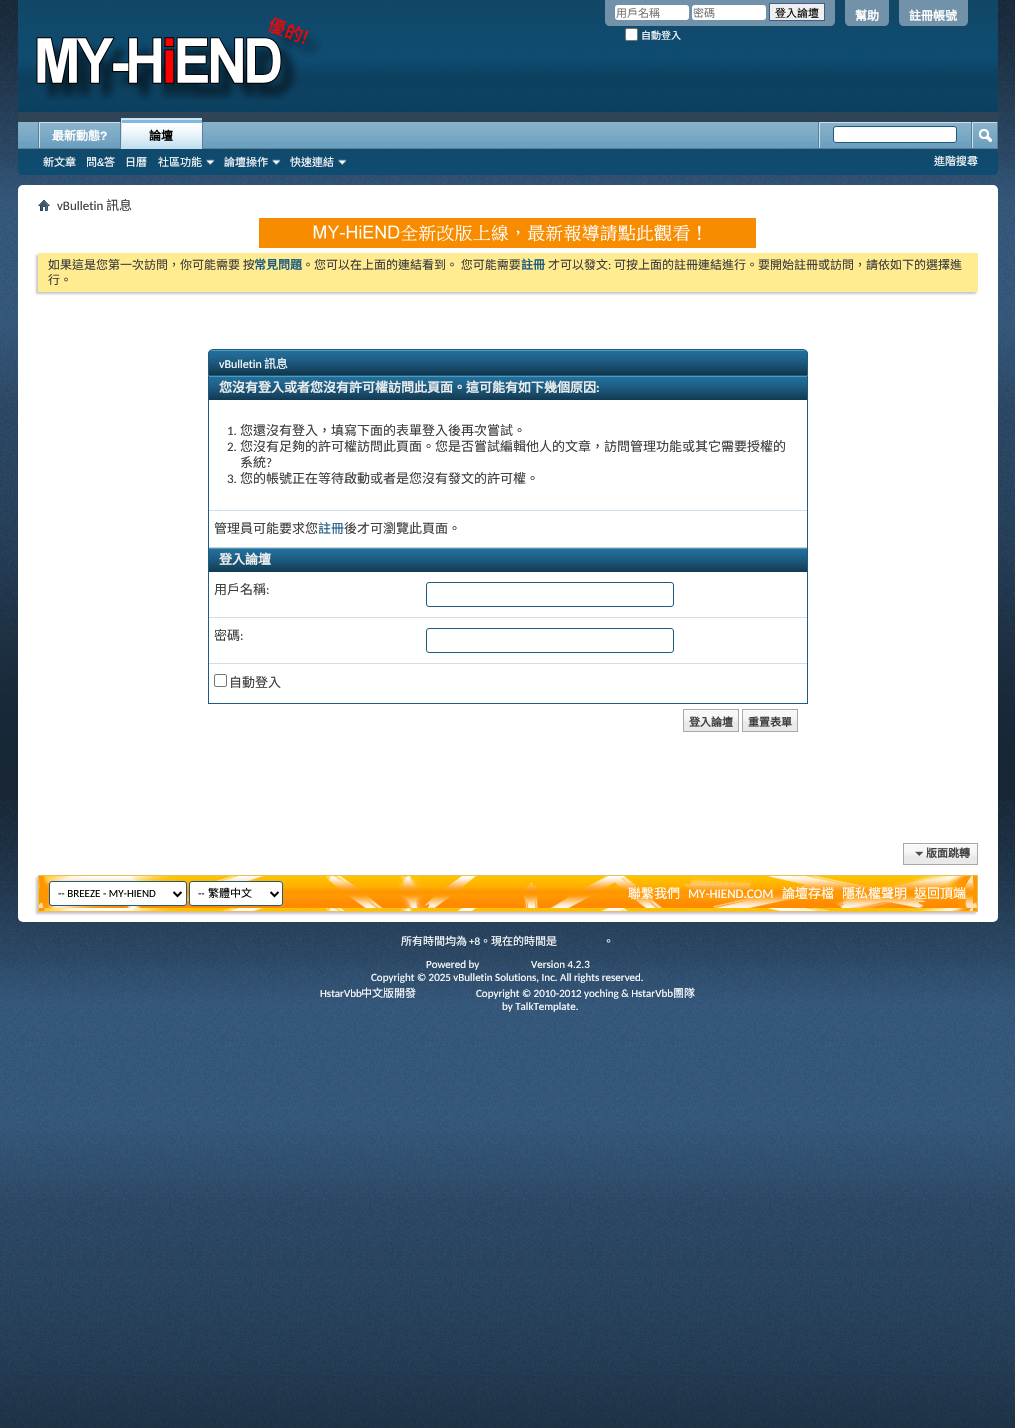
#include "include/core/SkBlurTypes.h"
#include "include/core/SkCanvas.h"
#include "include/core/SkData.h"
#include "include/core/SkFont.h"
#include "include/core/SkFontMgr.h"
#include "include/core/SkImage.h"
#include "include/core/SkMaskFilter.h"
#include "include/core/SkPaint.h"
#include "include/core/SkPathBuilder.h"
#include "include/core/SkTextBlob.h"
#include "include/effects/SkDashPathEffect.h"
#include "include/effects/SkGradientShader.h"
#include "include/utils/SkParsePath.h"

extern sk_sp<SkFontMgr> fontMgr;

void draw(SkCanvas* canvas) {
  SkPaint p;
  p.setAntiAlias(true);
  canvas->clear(SK_ColorWHITE);
  canvas->drawImageRect(SkImages::DeferredFromEncodedData(SkData::MakeFromFileName("images/1.png")), SkRect::MakeLTRB(0, 0, 1015, 1428), SkSamplingOptions());
  p.setColor(SkColorSetRGB(47, 68, 86));
  canvas->drawPath(SkPathBuilder().moveTo(18, 0).lineTo(998, 0).lineTo(998, 170).cubicTo(998, 173, 996, 175, 993, 175).lineTo(23, 175).cubicTo(20, 175, 18, 173, 18, 170).close().detach(), p);
  canvas->drawImageRect(SkImages::DeferredFromEncodedData(SkData::MakeFromFileName("images/2.png")), SkRect::MakeLTRB(18, 0, 998, 112), SkSamplingOptions());
  canvas->drawImageRect(SkImages::DeferredFromEncodedData(SkData::MakeFromFileName("images/3.png")), SkRect::MakeLTRB(36, 17, 323, 101), SkSamplingOptions());
  p.setColor(SkColorSetRGB(113, 146, 168));
  canvas->drawPath(SkPathBuilder().moveTo(605, 0).lineTo(835, 0).lineTo(835, 21).cubicTo(835, 24, 833, 26, 830, 26).lineTo(610, 26).cubicTo(607, 26, 605, 24, 605, 21).close().detach(), p);
  p.setColor(SK_ColorWHITE);
  canvas->drawRoundRect(SkRect::MakeLTRB(615, 5, 689, 20), 3, 3, p);
  canvas->drawRoundRect(SkRect::MakeLTRB(692, 5, 766, 20), 3, 3, p);
  p.setColor(SkColorSetRGB(239, 239, 239));
  canvas->drawRect(SkRect::MakeLTRB(769.5f, 3.5f, 824.5f, 20.5f), p);
  p.setStyle(SkPaint::kStroke_Style);
  p.setStrokeWidth(1);
  p.setColor(SkColorSetRGB(65, 93, 141));
  canvas->drawRect(SkRect::MakeLTRB(769.5f, 3.5f, 824.5f, 20.5f), p);
  p.setStyle(SkPaint::kFill_Style);
  p.setColor(SK_ColorWHITE);
  canvas->drawRoundRect(SkRect::MakeLTRB(625.5f, 28.5f, 637.5f, 40.5f), 1.5f, 1.5f, p);
  p.setStyle(SkPaint::kStroke_Style);
  p.setColor(SkColorSetRGB(118, 118, 118));
  canvas->drawRoundRect(SkRect::MakeLTRB(625.5f, 28.5f, 637.5f, 40.5f), 1.5f, 1.5f, p);
  p.setStyle(SkPaint::kFill_Style);
  p.setColor(SkColorSetRGB(113, 146, 168));
  canvas->drawPath(SkPathBuilder().moveTo(845, 0).lineTo(889, 0).lineTo(889, 21).cubicTo(889, 24, 887, 26, 884, 26).lineTo(850, 26).cubicTo(847, 26, 845, 24, 845, 21).close().detach(), p);
  canvas->drawPath(SkPathBuilder().moveTo(899, 0).lineTo(968, 0).lineTo(968, 21).cubicTo(968, 24, 966, 26, 963, 26).lineTo(904, 26).cubicTo(901, 26, 899, 24, 899, 21).close().detach(), p);
  canvas->drawImageRect(SkImages::DeferredFromEncodedData(SkData::MakeFromFileName("images/4.png")), SkRect::MakeLTRB(18, 149, 998, 175), SkSamplingOptions());
  p.setColor(SkColorSetRGB(110, 161, 192));
  canvas->drawRect(SkRect::MakeLTRB(18, 122, 997, 148), p);
  canvas->drawImageRect(SkImages::DeferredFromEncodedData(SkData::MakeFromFileName("images/5.png")), SkRect::MakeLTRB(18, 122, 997, 142), SkSamplingOptions());
  p.setColor(SkColorSetRGB(90, 127, 151));
  canvas->drawRect(SkRect::MakeLTRB(120, 122, 121, 149), p);
  canvas->drawRect(SkRect::MakeLTRB(38, 122, 39, 149), p);
  p.setColor(SkColorSetRGB(110, 161, 192));
  canvas->drawRect(SkRect::MakeLTRB(40, 123, 120, 142), p);
  canvas->drawImageRect(SkImages::DeferredFromEncodedData(SkData::MakeFromFileName("images/6.png")), SkRect::MakeLTRB(40, 123, 120, 143), SkSamplingOptions());
  p.setColor(SkColorSetRGB(206, 223, 235));
  canvas->drawRect(SkRect::MakeLTRB(39, 122, 120, 123), p);
  canvas->drawRect(SkRect::MakeLTRB(39, 122, 40, 149), p);
  p.setColor(SkColorSetRGB(90, 127, 151));
  canvas->drawRect(SkRect::MakeLTRB(202, 122, 203, 148), p);
  canvas->drawRect(SkRect::MakeLTRB(18, 148, 998, 149), p);
  p.setColor(SkColorSetRGB(126, 187, 224));
  canvas->drawRect(SkRect::MakeLTRB(122, 119, 202, 149), p);
  canvas->drawImageRect(SkImages::DeferredFromEncodedData(SkData::MakeFromFileName("images/7.png")), SkRect::MakeLTRB(122, 119, 202, 149), SkSamplingOptions());
  p.setColor(SkColorSetRGB(206, 223, 235));
  canvas->drawRect(SkRect::MakeLTRB(121, 118, 202, 119), p);
  canvas->drawRect(SkRect::MakeLTRB(121, 118, 122, 149), p);
  canvas->drawImageRect(SkImages::DeferredFromEncodedData(SkData::MakeFromFileName("images/8.png")), SkRect::MakeLTRB(206, 159, 215, 165), SkSamplingOptions());
  canvas->drawImageRect(SkImages::DeferredFromEncodedData(SkData::MakeFromFileName("images/9.png")), SkRect::MakeLTRB(272, 159, 281, 165), SkSamplingOptions());
  canvas->drawImageRect(SkImages::DeferredFromEncodedData(SkData::MakeFromFileName("images/10.png")), SkRect::MakeLTRB(338, 159, 347, 165), SkSamplingOptions());
  p.setColor(SkColorSetRGB(90, 127, 151));
  canvas->drawRect(SkRect::MakeLTRB(818, 122, 819, 148), p);
  p.setColor(SkColorSetRGB(206, 223, 235));
  canvas->drawRect(SkRect::MakeLTRB(819, 122, 971, 123), p);
  canvas->drawRect(SkRect::MakeLTRB(819, 122, 820, 148), p);
  p.setColor(SK_ColorWHITE);
  canvas->drawRoundRect(SkRect::MakeLTRB(833.5f, 126.5f, 956.5f, 142.5f), 2.5f, 2.5f, p);
  p.setStyle(SkPaint::kStroke_Style);
  p.setColor(SkColorSetRGB(29, 91, 128));
  canvas->drawRoundRect(SkRect::MakeLTRB(833.5f, 126.5f, 956.5f, 142.5f), 2.5f, 2.5f, p);
  p.setStyle(SkPaint::kFill_Style);
  p.setColor(SkColorSetRGB(90, 127, 151));
  canvas->drawRect(SkRect::MakeLTRB(997, 122, 998, 148), p);
  canvas->drawRect(SkRect::MakeLTRB(971, 122, 972, 148), p);
  p.setColor(SkColorSetRGB(206, 223, 235));
  canvas->drawRect(SkRect::MakeLTRB(972, 122, 997, 123), p);
  canvas->drawRect(SkRect::MakeLTRB(972, 122, 973, 148), p);
  canvas->drawImageRect(SkImages::DeferredFromEncodedData(SkData::MakeFromFileName("images/11.png")), SkRect::MakeLTRB(979, 129, 992, 143), SkSamplingOptions());
  p.setColor(SK_ColorWHITE);
  canvas->drawRoundRect(SkRect::MakeLTRB(18, 185, 998, 922), 5, 5, p);
  canvas->drawImageRect(SkImages::DeferredFromEncodedData(SkData::MakeFromFileName("images/12.png")), SkRect::MakeLTRB(38, 200, 50, 211), SkSamplingOptions());
  canvas->drawImageRect(SkImages::DeferredFromEncodedData(SkData::MakeFromFileName("images/13.png")), SkRect::MakeLTRB(259, 218, 756, 248), SkSamplingOptions());
  p.setColor(SkColorSetRGB(200, 200, 200));
  p.setMaskFilter(SkMaskFilter::MakeBlur(kNormal_SkBlurStyle, 1));
  canvas->drawRect(SkRect::MakeLTRB(36, 255, 976, 294), p);
  p.setMaskFilter(nullptr);
  p.setColor(SkColorSetRGB(255, 235, 144));
  canvas->drawRect(SkRect::MakeLTRB(38, 253, 978, 292), p);
  canvas->drawImageRect(SkImages::DeferredFromEncodedData(SkData::MakeFromFileName("images/14.png")), SkRect::MakeLTRB(208, 350, 808, 375), SkSamplingOptions());
  p.setStyle(SkPaint::kStroke_Style);
  p.setColor(SkColorSetRGB(29, 91, 128));
  canvas->drawPath(SkPathBuilder().moveTo(213, 349.5f).lineTo(803, 349.5f).cubicTo(805.5f, 349.5f, 807.5f, 351.5f, 807.5f, 354).lineTo(807.5f, 375.5f).lineTo(208.5f, 375.5f).lineTo(208.5f, 354).cubicTo(208.5f, 351.5f, 210.5f, 349.5f, 213, 349.5f).close().detach(), p);
  p.setStyle(SkPaint::kFill_Style);
  canvas->drawRect(SkRect::MakeLTRB(807, 376, 808, 704), p);
  canvas->drawRect(SkRect::MakeLTRB(208, 703, 808, 704), p);
  canvas->drawRect(SkRect::MakeLTRB(208, 376, 209, 704), p);
  canvas->drawImageRect(SkImages::DeferredFromEncodedData(SkData::MakeFromFileName("images/15.png")), SkRect::MakeLTRB(209, 376, 807, 400), SkSamplingOptions());
  p.setColor(SkColorSetRGB(206, 223, 235));
  canvas->drawRect(SkRect::MakeLTRB(209, 510, 807, 511), p);
  canvas->drawImageRect(SkImages::DeferredFromEncodedData(SkData::MakeFromFileName("images/15.png")), SkRect::MakeLTRB(209, 548, 807, 572), SkSamplingOptions());
  p.setColor(SkColorSetRGB(206, 206, 206));
  canvas->drawRect(SkRect::MakeLTRB(209, 547, 807, 548), p);
  p.setStyle(SkPaint::kStroke_Style);
  p.setColor(SkColorSetRGB(29, 91, 128));
  canvas->drawRoundRect(SkRect::MakeLTRB(426.5f, 582.5f, 673.5f, 606.5f), 2.5f, 2.5f, p);
  p.setStyle(SkPaint::kFill_Style);
  p.setColor(SkColorSetRGB(206, 223, 235));
  canvas->drawRect(SkRect::MakeLTRB(209, 617, 807, 618), p);
  p.setStyle(SkPaint::kStroke_Style);
  p.setColor(SkColorSetRGB(29, 91, 128));
  canvas->drawRoundRect(SkRect::MakeLTRB(426.5f, 628.5f, 673.5f, 652.5f), 2.5f, 2.5f, p);
  p.setStyle(SkPaint::kFill_Style);
  p.setColor(SkColorSetRGB(206, 223, 235));
  canvas->drawRect(SkRect::MakeLTRB(209, 663, 807, 664), p);
  p.setStyle(SkPaint::kStroke_Style);
  p.setColor(SkColorSetRGB(118, 118, 118));
  canvas->drawRoundRect(SkRect::MakeLTRB(214.5f, 674.5f, 226.5f, 686.5f), 1.5f, 1.5f, p);
  p.setStyle(SkPaint::kFill_Style);
  p.setColor(SkColorSetRGB(233, 233, 233));
  canvas->drawRect(SkRect::MakeLTRB(684, 710, 738, 731), p);
  canvas->drawImageRect(SkImages::DeferredFromEncodedData(SkData::MakeFromFileName("images/16.png")), SkRect::MakeLTRB(684, 710, 738, 722), SkSamplingOptions());
  p.setStyle(SkPaint::kStroke_Style);
  p.setColor(SkColorSetRGB(168, 168, 168));
  canvas->drawRect(SkRect::MakeLTRB(683.5f, 709.5f, 738.5f, 731.5f), p);
  p.setStyle(SkPaint::kFill_Style);
  p.setColor(SkColorSetRGB(233, 233, 233));
  canvas->drawRect(SkRect::MakeLTRB(743, 710, 797, 731), p);
  canvas->drawImageRect(SkImages::DeferredFromEncodedData(SkData::MakeFromFileName("images/16.png")), SkRect::MakeLTRB(743, 710, 797, 722), SkSamplingOptions());
  p.setStyle(SkPaint::kStroke_Style);
  p.setColor(SkColorSetRGB(168, 168, 168));
  canvas->drawRect(SkRect::MakeLTRB(742.5f, 709.5f, 797.5f, 731.5f), p);
  p.setStyle(SkPaint::kFill_Style);
  p.setColor(SkColorSetRGB(233, 233, 233));
  canvas->drawRect(SkRect::MakeLTRB(904, 844, 977, 864), p);
  canvas->drawImageRect(SkImages::DeferredFromEncodedData(SkData::MakeFromFileName("images/17.png")), SkRect::MakeLTRB(904, 844, 977, 856), SkSamplingOptions());
  p.setStyle(SkPaint::kStroke_Style);
  p.setColor(SkColorSetRGB(168, 168, 168));
  canvas->drawRect(SkRect::MakeLTRB(903.5f, 843.5f, 977.5f, 864.5f), p);
  canvas->drawImageRect(SkImages::DeferredFromEncodedData(SkData::MakeFromFileName("images/18.png")), SkRect::MakeLTRB(915, 851, 924, 857), SkSamplingOptions());
  p.setStyle(SkPaint::kFill_Style);
  p.setColor(SkColorSetRGB(200, 200, 200));
  p.setMaskFilter(SkMaskFilter::MakeBlur(kNormal_SkBlurStyle, 1));
  canvas->drawRect(SkRect::MakeLTRB(36, 877, 976, 914), p);
  p.setMaskFilter(nullptr);
  canvas->drawImageRect(SkImages::DeferredFromEncodedData(SkData::MakeFromFileName("images/19.png")), SkRect::MakeLTRB(39, 876, 977, 911), SkSamplingOptions());
  p.setStyle(SkPaint::kStroke_Style);
  p.setColor(SkColorSetRGB(230, 192, 88));
  canvas->drawRect(SkRect::MakeLTRB(38.5f, 875.5f, 977.5f, 911.5f), p);
  p.setStyle(SkPaint::kFill_Style);
  p.setColor(SK_ColorWHITE);
  canvas->drawRoundRect(SkRect::MakeLTRB(49.5f, 881.5f, 186.5f, 905.5f), 2.5f, 2.5f, p);
  p.setStyle(SkPaint::kStroke_Style);
  p.setColor(SkColorSetRGB(29, 91, 128));
  canvas->drawRoundRect(SkRect::MakeLTRB(49.5f, 881.5f, 186.5f, 905.5f), 2.5f, 2.5f, p);
  p.setStrokeWidth(2);
  p.setColor(SK_ColorBLACK);
  canvas->drawPath(SkPathBuilder().moveTo(173.5f, 892).lineTo(177.5f, 896).lineTo(181.5f, 892).detach(), p);
  p.setStyle(SkPaint::kFill_Style);
  p.setColor(SK_ColorWHITE);
  canvas->drawRoundRect(SkRect::MakeLTRB(189.5f, 881.5f, 282.5f, 905.5f), 2.5f, 2.5f, p);
  p.setStyle(SkPaint::kStroke_Style);
  p.setStrokeWidth(1);
  p.setColor(SkColorSetRGB(29, 91, 128));
  canvas->drawRoundRect(SkRect::MakeLTRB(189.5f, 881.5f, 282.5f, 905.5f), 2.5f, 2.5f, p);
  p.setStrokeWidth(2);
  p.setColor(SK_ColorBLACK);
  canvas->drawPath(SkPathBuilder().moveTo(270.5f, 892).lineTo(274.5f, 896).lineTo(278.5f, 892).detach(), p);
  SkFont font1(fontMgr->matchFamilyStyle("Noto Sans CJK TC", SkFontStyle::Normal()), 11);
  font1.setSubpixel(true);
  p.setStyle(SkPaint::kFill_Style);
  p.setColor(SkColorSetRGB(119, 119, 119));
  canvas->drawString("用戶名稱", 616, 17, font1, p);
  canvas->drawString("密碼", 693, 17, font1, p);
  p.setColor(SK_ColorBLACK);
  canvas->drawString("登入論壇", 775, 17, font1, p);
  SkFont font2(fontMgr->matchFamilyStyle("Noto Sans CJK TC", SkFontStyle::Normal()), 10);
  font2.setSubpixel(true);
  p.setColor(SK_ColorWHITE);
  canvas->drawString("自動登入", 641, 39, font2, p);
  SkFont font3(fontMgr->matchFamilyStyle("Noto Sans CJK TC", SkFontStyle::Bold()), 12);
  font3.setSubpixel(true);
  canvas->drawString("幫助", 855, 20, font3, p);
  canvas->drawString("註冊帳號", 909, 20, font3, p);
  canvas->drawString("最新動態", 52, 140, font3, p);
  SkFont font4(fontMgr->matchFamilyStyle("Liberation Sans", SkFontStyle::Bold()), 12);
  font4.setSubpixel(true);
  canvas->drawString("?", 100, 140, font4, p);
  p.setColor(SK_ColorBLACK);
  canvas->drawString("論壇", 149, 140, font3, p);
  p.setColor(SK_ColorWHITE);
  canvas->drawString("新文章", 43, 166, font1, p);
  canvas->drawString("問", 86, 166, font1, p);
  SkFont font5(fontMgr->matchFamilyStyle("Liberation Sans", SkFontStyle::Normal()), 11);
  font5.setSubpixel(true);
  canvas->drawString("&", 97, 166, font5, p);
  canvas->drawString("答", 104, 166, font1, p);
  canvas->drawString("日曆", 125, 166, font1, p);
  canvas->drawString("社區功能", 158, 166, font1, p);
  canvas->drawString("論壇操作", 224, 166, font1, p);
  canvas->drawString("快速連結", 290, 166, font1, p);
  canvas->drawString("進階搜尋", 934, 165, font1, p);
  SkFont font6(fontMgr->matchFamilyStyle("Carlito", SkFontStyle::Normal()), 13);
  font6.setSubpixel(true);
  p.setColor(SkColorSetRGB(62, 62, 62));
  canvas->drawString("vBulletin", 57, 210, font6, p);
  SkFont font7(fontMgr->matchFamilyStyle("Noto Sans CJK TC", SkFontStyle::Normal()), 13);
  font7.setSubpixel(true);
  canvas->drawString("訊息", 106, 210, font7, p);
  SkFont font8(fontMgr->matchFamilyStyle("Noto Sans CJK TC", SkFontStyle::Normal()), 12);
  font8.setSubpixel(true);
  canvas->drawString("如果這是您第一次訪問，你可能需要 按", 48, 269, font8, p);
  p.setColor(SkColorSetRGB(29, 91, 128));
  canvas->drawString("常見問題", 254, 269, font3, p);
  p.setColor(SkColorSetRGB(62, 62, 62));
  canvas->drawString("。您可以在上面的連結看到。 您可能需要", 302, 269, font8, p);
  p.setColor(SkColorSetRGB(29, 91, 128));
  canvas->drawString("註冊", 521, 269, font3, p);
  p.setColor(SkColorSetRGB(62, 62, 62));
  canvas->drawString("才可以發文", 548, 269, font8, p);
  SkFont font9(fontMgr->matchFamilyStyle("Carlito", SkFontStyle::Normal()), 12);
  font9.setSubpixel(true);
  canvas->drawString(":", 608, 269, font9, p);
  canvas->drawString("可按上面的註冊連結進行。要開始註冊或訪問，請依如下的選擇進", 614, 269, font8, p);
  canvas->drawString("行。", 48, 284, font8, p);
  p.setColor(SK_ColorWHITE);
  canvas->drawString("vBulletin", 219, 368, font9, p);
  canvas->drawString("訊息", 264, 368, font8, p);
  SkFont font10(fontMgr->matchFamilyStyle("Noto Sans CJK TC", SkFontStyle::Bold()), 13);
  font10.setSubpixel(true);
  p.setColor(SkColorSetRGB(238, 238, 238));
  canvas->drawString("您沒有登入或者您沒有許可權訪問此頁面。這可能有如下幾個原因", 219, 392, font10, p);
  SkFont font11(fontMgr->matchFamilyStyle("Carlito", SkFontStyle::Bold()), 13);
  font11.setSubpixel(true);
  canvas->drawString(":", 596, 392, font11, p);
  p.setColor(SkColorSetRGB(62, 62, 62));
  canvas->drawString("1.", 227, 435, font6, p);
  canvas->drawString("您還沒有登入，填寫下面的表單登入後再次嘗試。", 240, 435, font7, p);
  canvas->drawString("2.", 227, 451, font6, p);
  canvas->drawString("您沒有足夠的許可權訪問此頁面。您是否嘗試編輯他人的文章，訪問管理功能或其它需要授權的", 240, 451, font7, p);
  canvas->drawString("系統", 240, 467, font7, p);
  canvas->drawString("?", 266, 467, font6, p);
  canvas->drawString("3.", 227, 483, font6, p);
  canvas->drawString("您的帳號正在等待啟動或者是您沒有發文的許可權。", 240, 483, font7, p);
  canvas->drawString("管理員可能要求您", 214, 533, font7, p);
  p.setColor(SkColorSetRGB(29, 91, 128));
  canvas->drawString("註冊", 318, 533, font7, p);
  p.setColor(SkColorSetRGB(62, 62, 62));
  canvas->drawString("後才可瀏覽此頁面。", 344, 533, font7, p);
  p.setColor(SkColorSetRGB(238, 238, 238));
  canvas->drawString("登入論壇", 219, 564, font10, p);
  p.setColor(SkColorSetRGB(62, 62, 62));
  canvas->drawString("用戶名稱", 214, 594, font7, p);
  canvas->drawString(":", 266, 594, font6, p);
  canvas->drawString("密碼", 214, 640, font7, p);
  canvas->drawString(":", 240, 640, font6, p);
  canvas->drawString("自動登入", 229, 687, font7, p);
  SkFont font12(fontMgr->matchFamilyStyle("Noto Sans CJK TC", SkFontStyle::Bold()), 11);
  font12.setSubpixel(true);
  canvas->drawString("登入論壇", 689, 726, font12, p);
  canvas->drawString("重置表單", 748, 726, font12, p);
  canvas->drawString("版面跳轉", 926, 857, font12, p);
  SkFont font13(fontMgr->matchFamilyStyle("Carlito", SkFontStyle::Normal()), 11);
  font13.setSubpixel(true);
  p.setColor(SK_ColorBLACK);
  canvas->drawString("-- BREEZE - MY-HIEND", 58, 897, font13, p);
  canvas->drawString("--", 198, 897, font13, p);
  canvas->drawString("繁體中文", 208, 897, font1, p);
  p.setColor(SK_ColorWHITE);
  canvas->drawString("聯繫我們", 628, 898, font7, p);
  canvas->drawString("MY-HIEND.COM", 688, 898, font6, p);
  canvas->drawString("論壇存檔", 782, 898, font7, p);
  canvas->drawString("隱私權聲明", 842, 898, font7, p);
  canvas->drawString("返回頂端", 914, 898, font7, p);
  canvas->drawString("所有時間均為", 401, 945, font1, p);
  canvas->drawString("+8", 469, 945, font13, p);
  canvas->drawString("。現在的時間是", 480, 945, font1, p);
  canvas->drawString("。", 603, 945, font1, p);
  canvas->drawString("Powered by", 426, 968, font13, p);
  canvas->drawString("Version 4.2.3", 531, 968, font13, p);
  canvas->drawString("Copyright © 2025 vBulletin Solutions, Inc. All rights reserved.", 371, 981, font13, p);
  canvas->drawString("HstarVbb", 320, 997, font13, p);
  canvas->drawString("中文版開發", 361, 997, font1, p);
  canvas->drawString("Copyright © 2010-2012 yoching & HstarVbb", 476, 997, font13, p);
  canvas->drawString("團隊", 673, 997, font1, p);
  canvas->drawString("by TalkTemplate.", 502, 1010, font13, p);
}
